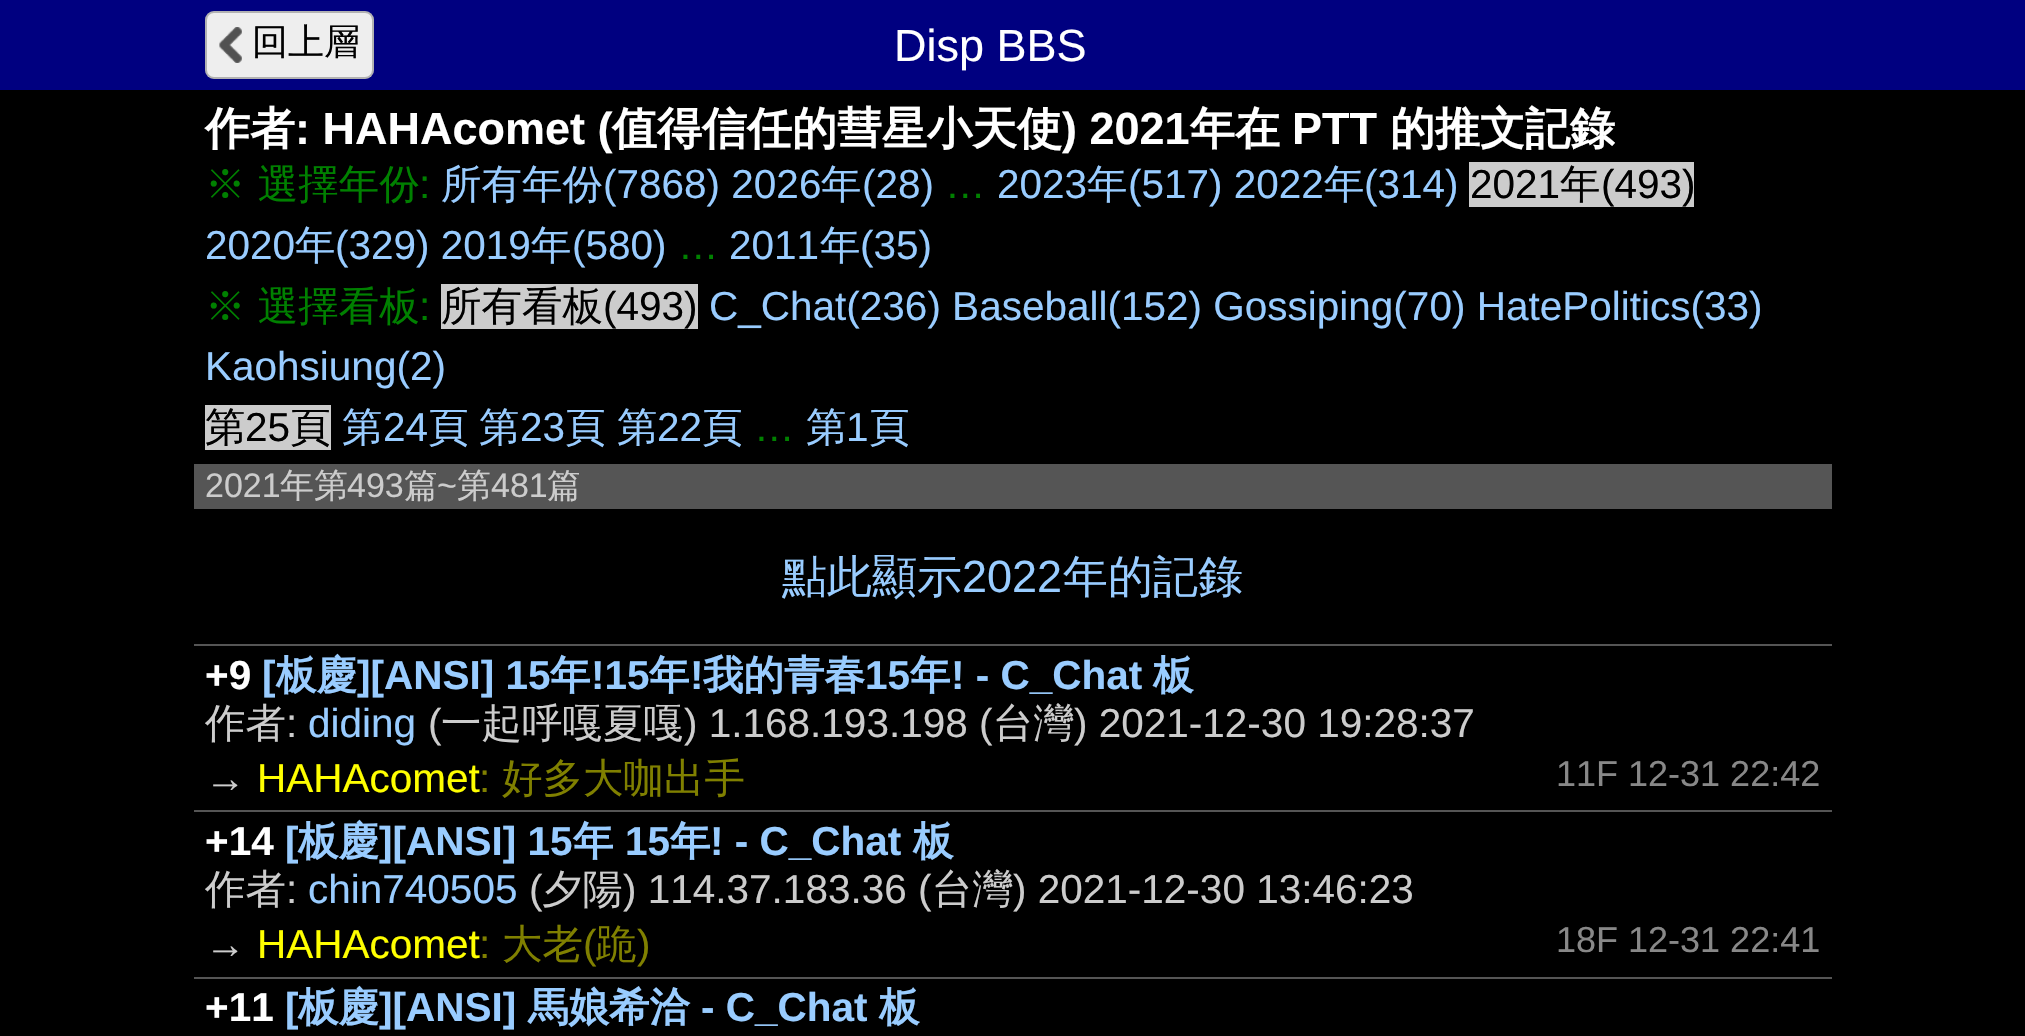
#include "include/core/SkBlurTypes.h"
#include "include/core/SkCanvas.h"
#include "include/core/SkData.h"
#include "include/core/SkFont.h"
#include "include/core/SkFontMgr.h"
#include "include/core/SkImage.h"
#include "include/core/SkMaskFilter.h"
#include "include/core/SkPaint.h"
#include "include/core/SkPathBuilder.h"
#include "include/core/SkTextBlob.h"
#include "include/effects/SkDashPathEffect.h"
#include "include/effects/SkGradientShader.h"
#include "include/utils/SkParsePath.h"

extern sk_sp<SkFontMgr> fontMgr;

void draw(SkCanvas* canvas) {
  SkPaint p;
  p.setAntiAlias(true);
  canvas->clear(SK_ColorBLACK);
  p.setColor(SkColorSetRGB(0, 0, 128));
  canvas->drawRect(SkRect::MakeLTRB(0, 0, 2025, 90), p);
  p.setColor(SkColorSetRGB(238, 238, 238));
  canvas->drawRoundRect(SkRect::MakeLTRB(205, 11, 374, 79), 9, 9, p);
  canvas->drawImageRect(SkImages::DeferredFromEncodedData(SkData::MakeFromFileName("images/1.png")), SkRect::MakeLTRB(219, 27, 242, 63), SkSamplingOptions());
  p.setStyle(SkPaint::kStroke_Style);
  p.setStrokeWidth(2);
  p.setColor(SkColorSetARGB(64, 0, 0, 0));
  canvas->drawRoundRect(SkRect::MakeLTRB(206, 12, 373, 78), 8, 8, p);
  p.setStyle(SkPaint::kFill_Style);
  p.setColor(SkColorSetRGB(85, 85, 85));
  canvas->drawRect(SkRect::MakeLTRB(194, 464, 1832, 509), p);
  p.setColor(SkColorSetRGB(204, 204, 204));
  canvas->drawRect(SkRect::MakeLTRB(1469, 162, 1694, 207), p);
  canvas->drawRect(SkRect::MakeLTRB(441, 284, 698, 329), p);
  canvas->drawRect(SkRect::MakeLTRB(205, 405, 331, 450), p);
  p.setColor(SkColorSetRGB(85, 85, 85));
  canvas->drawRect(SkRect::MakeLTRB(194, 644, 1832, 646), p);
  canvas->drawRect(SkRect::MakeLTRB(194, 810, 1832, 812), p);
  canvas->drawRect(SkRect::MakeLTRB(194, 977, 1832, 979), p);
  SkFont font1(fontMgr->matchFamilyStyle("WenQuanYi Zen Hei", SkFontStyle(500, SkFontStyle::kNormal_Width, SkFontStyle::kUpright_Slant)), 36);
  font1.setSubpixel(true);
  p.setColor(SK_ColorBLACK);
  canvas->drawString("回上層", 252, 54, font1, p);
  SkFont font2(fontMgr->matchFamilyStyle("Liberation Sans", SkFontStyle::Normal()), 45);
  font2.setSubpixel(true);
  p.setColor(SK_ColorWHITE);
  canvas->drawString("Disp BBS", 894, 61, font2, p);
  SkFont font3(fontMgr->matchFamilyStyle("WenQuanYi Zen Hei", SkFontStyle::Bold()), 45);
  font3.setSubpixel(true);
  canvas->drawString("作者", 205, 144, font3, p);
  SkFont font4(fontMgr->matchFamilyStyle("Liberation Sans", SkFontStyle::Bold()), 45);
  font4.setSubpixel(true);
  canvas->drawString(": HAHAcomet (", 295, 144, font4, p);
  canvas->drawString("值得信任的彗星小天使", 612, 144, font3, p);
  canvas->drawString(") 2021", 1062, 144, font4, p);
  canvas->drawString("年在", 1190, 144, font3, p);
  canvas->drawString("PTT", 1292, 144, font4, p);
  canvas->drawString("的推文記錄", 1390, 144, font3, p);
  SkFont font5(fontMgr->matchFamilyStyle("WenQuanYi Zen Hei", SkFontStyle(500, SkFontStyle::kNormal_Width, SkFontStyle::kUpright_Slant)), 40.5f);
  font5.setSubpixel(true);
  p.setColor(SkColorSetRGB(0, 128, 0));
  canvas->drawString("※ 選擇年份", 205, 198, font5, p);
  SkFont font6(fontMgr->matchFamilyStyle("Liberation Sans", SkFontStyle::Normal()), 40.5f);
  font6.setSubpixel(true);
  canvas->drawString(":", 419, 198, font6, p);
  p.setColor(SkColorSetRGB(153, 204, 255));
  canvas->drawString("所有年份", 441, 198, font5, p);
  canvas->drawString("(7868) 2026", 603, 198, font6, p);
  canvas->drawString("年", 821, 198, font5, p);
  canvas->drawString("(28)", 862, 198, font6, p);
  p.setColor(SkColorSetRGB(0, 128, 0));
  canvas->drawString("…", 945, 198, font6, p);
  p.setColor(SkColorSetRGB(153, 204, 255));
  canvas->drawString("2023", 997, 198, font6, p);
  canvas->drawString("年", 1087, 198, font5, p);
  canvas->drawString("(517) 2022", 1128, 198, font6, p);
  canvas->drawString("年", 1324, 198, font5, p);
  canvas->drawString("(314)", 1364, 198, font6, p);
  p.setColor(SK_ColorBLACK);
  canvas->drawString("2021", 1470, 198, font6, p);
  canvas->drawString("年", 1560, 198, font5, p);
  canvas->drawString("(493)", 1601, 198, font6, p);
  p.setColor(SkColorSetRGB(153, 204, 255));
  canvas->drawString("2020", 205, 259, font6, p);
  canvas->drawString("年", 295, 259, font5, p);
  canvas->drawString("(329) 2019", 335, 259, font6, p);
  canvas->drawString("年", 531, 259, font5, p);
  canvas->drawString("(580)", 572, 259, font6, p);
  p.setColor(SkColorSetRGB(0, 128, 0));
  canvas->drawString("…", 678, 259, font6, p);
  p.setColor(SkColorSetRGB(153, 204, 255));
  canvas->drawString("2011", 729, 259, font6, p);
  canvas->drawString("年", 820, 259, font5, p);
  canvas->drawString("(35)", 860, 259, font6, p);
  p.setColor(SkColorSetRGB(0, 128, 0));
  canvas->drawString("※ 選擇看板", 205, 320, font5, p);
  canvas->drawString(":", 419, 320, font6, p);
  p.setColor(SK_ColorBLACK);
  canvas->drawString("所有看板", 441, 320, font5, p);
  canvas->drawString("(493)", 603, 320, font6, p);
  p.setColor(SkColorSetRGB(153, 204, 255));
  canvas->drawString("C_Chat(236) Baseball(152) Gossiping(70) HatePolitics(33)", 709, 320, font6, p);
  canvas->drawString("Kaohsiung(2)", 205, 380, font6, p);
  p.setColor(SK_ColorBLACK);
  canvas->drawString("第", 205, 441, font5, p);
  canvas->drawString("25", 245, 441, font6, p);
  canvas->drawString("頁", 290, 441, font5, p);
  p.setColor(SkColorSetRGB(153, 204, 255));
  canvas->drawString("第", 342, 441, font5, p);
  canvas->drawString("24", 383, 441, font6, p);
  canvas->drawString("頁", 428, 441, font5, p);
  canvas->drawString("第", 479, 441, font5, p);
  canvas->drawString("23", 520, 441, font6, p);
  canvas->drawString("頁", 565, 441, font5, p);
  canvas->drawString("第", 617, 441, font5, p);
  canvas->drawString("22", 657, 441, font6, p);
  canvas->drawString("頁", 702, 441, font5, p);
  p.setColor(SkColorSetRGB(0, 128, 0));
  canvas->drawString("…", 754, 441, font6, p);
  p.setColor(SkColorSetRGB(153, 204, 255));
  canvas->drawString("第", 806, 441, font5, p);
  canvas->drawString("1", 846, 441, font6, p);
  canvas->drawString("頁", 869, 441, font5, p);
  SkFont font7(fontMgr->matchFamilyStyle("Liberation Sans", SkFontStyle::Normal()), 34);
  font7.setSubpixel(true);
  p.setColor(SkColorSetRGB(204, 204, 204));
  canvas->drawString("2021", 205, 497, font7, p);
  SkFont font8(fontMgr->matchFamilyStyle("WenQuanYi Zen Hei", SkFontStyle(500, SkFontStyle::kNormal_Width, SkFontStyle::kUpright_Slant)), 34);
  font8.setSubpixel(true);
  canvas->drawString("年第", 280, 497, font8, p);
  canvas->drawString("493", 347, 497, font7, p);
  canvas->drawString("篇", 404, 497, font8, p);
  canvas->drawString("~", 437, 497, font7, p);
  canvas->drawString("第", 457, 497, font8, p);
  canvas->drawString("481", 491, 497, font7, p);
  canvas->drawString("篇", 547, 497, font8, p);
  SkFont font9(fontMgr->matchFamilyStyle("WenQuanYi Zen Hei", SkFontStyle(500, SkFontStyle::kNormal_Width, SkFontStyle::kUpright_Slant)), 45);
  font9.setSubpixel(true);
  p.setColor(SkColorSetRGB(153, 204, 255));
  canvas->drawString("點此顯示", 782, 592, font9, p);
  canvas->drawString("2022", 962, 592, font2, p);
  canvas->drawString("年的記錄", 1063, 592, font9, p);
  SkFont font10(fontMgr->matchFamilyStyle("Liberation Sans", SkFontStyle::Bold()), 40.5f);
  font10.setSubpixel(true);
  p.setColor(SK_ColorWHITE);
  canvas->drawString("+9", 205, 689, font10, p);
  p.setColor(SkColorSetRGB(153, 204, 255));
  canvas->drawString("[", 262, 689, font10, p);
  SkFont font11(fontMgr->matchFamilyStyle("WenQuanYi Zen Hei", SkFontStyle::Bold()), 40.5f);
  font11.setSubpixel(true);
  canvas->drawString("板慶", 276, 689, font11, p);
  canvas->drawString("][ANSI] 15", 357, 689, font10, p);
  canvas->drawString("年", 550, 689, font11, p);
  canvas->drawString("!15", 591, 689, font10, p);
  canvas->drawString("年", 649, 689, font11, p);
  canvas->drawString("!", 690, 689, font10, p);
  canvas->drawString("我的青春", 703, 689, font11, p);
  canvas->drawString("15", 865, 689, font10, p);
  canvas->drawString("年", 910, 689, font11, p);
  canvas->drawString("! - C_Chat", 951, 689, font10, p);
  canvas->drawString("板", 1153, 689, font11, p);
  p.setColor(SkColorSetRGB(204, 204, 204));
  canvas->drawString("作者", 205, 737, font5, p);
  canvas->drawString(":", 286, 737, font6, p);
  p.setColor(SkColorSetRGB(153, 204, 255));
  canvas->drawString("diding", 308, 737, font6, p);
  p.setColor(SkColorSetRGB(204, 204, 204));
  canvas->drawString("(", 428, 737, font6, p);
  canvas->drawString("一起呼嘎夏嘎", 441, 737, font5, p);
  canvas->drawString(") 1.168.193.198 (", 684, 737, font6, p);
  canvas->drawString("台灣", 993, 737, font5, p);
  canvas->drawString(") 2021-12-30 19:28:37", 1074, 737, font6, p);
  canvas->drawString("→", 205, 792, font6, p);
  p.setColor(SkColorSetRGB(255, 255, 0));
  canvas->drawString("HAHAcomet", 257, 792, font6, p);
  p.setColor(SkColorSetRGB(128, 128, 0));
  canvas->drawString(":", 479, 792, font6, p);
  canvas->drawString("好多大咖出手", 502, 792, font5, p);
  SkFont font12(fontMgr->matchFamilyStyle("Liberation Sans", SkFontStyle::Normal()), 36);
  font12.setSubpixel(true);
  p.setColor(SkColorSetRGB(136, 136, 136));
  canvas->drawString("11F 12-31 22:42", 1556, 786, font12, p);
  p.setColor(SK_ColorWHITE);
  canvas->drawString("+14", 205, 855, font10, p);
  p.setColor(SkColorSetRGB(153, 204, 255));
  canvas->drawString("[", 285, 855, font10, p);
  canvas->drawString("板慶", 298, 855, font11, p);
  canvas->drawString("][ANSI] 15", 379, 855, font10, p);
  canvas->drawString("年", 573, 855, font11, p);
  canvas->drawString("15", 625, 855, font10, p);
  canvas->drawString("年", 670, 855, font11, p);
  canvas->drawString("! - C_Chat", 710, 855, font10, p);
  canvas->drawString("板", 913, 855, font11, p);
  p.setColor(SkColorSetRGB(204, 204, 204));
  canvas->drawString("作者", 205, 903, font5, p);
  canvas->drawString(":", 286, 903, font6, p);
  p.setColor(SkColorSetRGB(153, 204, 255));
  canvas->drawString("chin740505", 308, 903, font6, p);
  p.setColor(SkColorSetRGB(204, 204, 204));
  canvas->drawString("(", 529, 903, font6, p);
  canvas->drawString("夕陽", 542, 903, font5, p);
  canvas->drawString(") 114.37.183.36 (", 623, 903, font6, p);
  canvas->drawString("台灣", 932, 903, font5, p);
  canvas->drawString(") 2021-12-30 13:46:23", 1013, 903, font6, p);
  canvas->drawString("→", 205, 958, font6, p);
  p.setColor(SkColorSetRGB(255, 255, 0));
  canvas->drawString("HAHAcomet", 257, 958, font6, p);
  p.setColor(SkColorSetRGB(128, 128, 0));
  canvas->drawString(":", 479, 958, font6, p);
  canvas->drawString("大老", 502, 958, font5, p);
  canvas->drawString("(", 583, 958, font6, p);
  canvas->drawString("跪", 596, 958, font5, p);
  canvas->drawString(")", 637, 958, font6, p);
  p.setColor(SkColorSetRGB(136, 136, 136));
  canvas->drawString("18F 12-31 22:41", 1556, 952, font12, p);
  p.setColor(SK_ColorWHITE);
  canvas->drawString("+11", 205, 1021, font10, p);
  p.setColor(SkColorSetRGB(153, 204, 255));
  canvas->drawString("[", 285, 1021, font10, p);
  canvas->drawString("板慶", 298, 1021, font11, p);
  canvas->drawString("][ANSI]", 379, 1021, font10, p);
  canvas->drawString("馬娘希洽", 528, 1021, font11, p);
  canvas->drawString("- C_Chat", 701, 1021, font10, p);
  canvas->drawString("板", 879, 1021, font11, p);
}
